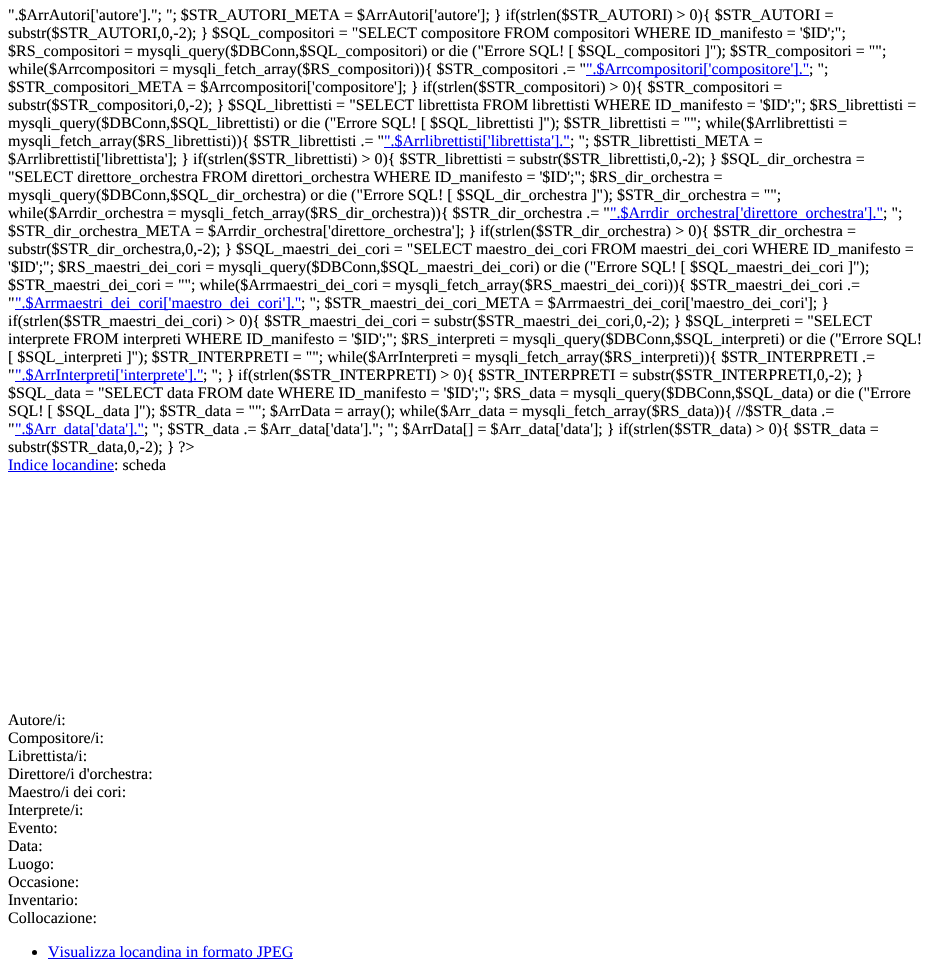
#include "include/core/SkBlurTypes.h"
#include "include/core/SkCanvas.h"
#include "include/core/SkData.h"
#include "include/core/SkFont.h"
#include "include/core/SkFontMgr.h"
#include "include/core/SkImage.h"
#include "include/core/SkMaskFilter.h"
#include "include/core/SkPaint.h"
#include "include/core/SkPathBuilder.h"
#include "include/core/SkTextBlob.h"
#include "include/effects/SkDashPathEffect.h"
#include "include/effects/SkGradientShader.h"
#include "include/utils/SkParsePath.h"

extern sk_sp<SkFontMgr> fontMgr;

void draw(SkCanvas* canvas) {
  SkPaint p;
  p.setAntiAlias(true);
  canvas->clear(SK_ColorWHITE);
  p.setColor(SkColorSetRGB(0, 0, 238));
  canvas->drawRect(SkRect::MakeLTRB(586, 75, 809, 76), p);
  canvas->drawRect(SkRect::MakeLTRB(384, 147, 570, 148), p);
  canvas->drawRect(SkRect::MakeLTRB(610, 219, 883, 220), p);
  canvas->drawRect(SkRect::MakeLTRB(15, 309, 301, 310), p);
  canvas->drawRect(SkRect::MakeLTRB(15, 381, 203, 382), p);
  canvas->drawRect(SkRect::MakeLTRB(15, 435, 144, 436), p);
  canvas->drawRect(SkRect::MakeLTRB(8, 471, 114, 472), p);
  p.setColor(SK_ColorBLACK);
  canvas->drawCircle(34.5f, 952.5f, 2.5f, p);
  p.setColor(SkColorSetRGB(0, 0, 238));
  canvas->drawRect(SkRect::MakeLTRB(48, 958, 293, 959), p);
  SkFont font1(fontMgr->matchFamilyStyle("Liberation Serif", SkFontStyle::Normal()), 16);
  font1.setSubpixel(true);
  p.setColor(SK_ColorBLACK);
  canvas->drawString("\".$ArrAutori['autore'].\"; \"; $STR_AUTORI_META = $ArrAutori['autore']; } if(strlen($STR_AUTORI) > 0){ $STR_AUTORI =", 8, 20, font1, p);
  canvas->drawString("substr($STR_AUTORI,0,-2); } $SQL_compositori = \"SELECT compositore FROM compositori WHERE ID_manifesto = '$ID';\";", 8, 38, font1, p);
  canvas->drawString("$RS_compositori = mysqli_query($DBConn,$SQL_compositori) or die (\"Errore SQL! [ $SQL_compositori ]\"); $STR_compositori = \"\";", 8, 56, font1, p);
  canvas->drawString("while($Arrcompositori = mysqli_fetch_array($RS_compositori)){ $STR_compositori .= \"", 8, 74, font1, p);
  p.setColor(SkColorSetRGB(0, 0, 238));
  canvas->drawString("\".$Arrcompositori['compositore'].\"", 586, 74, font1, p);
  p.setColor(SK_ColorBLACK);
  canvas->drawString("; \";", 809, 74, font1, p);
  canvas->drawString("$STR_compositori_META = $Arrcompositori['compositore']; } if(strlen($STR_compositori) > 0){ $STR_compositori =", 8, 92, font1, p);
  canvas->drawString("substr($STR_compositori,0,-2); } $SQL_librettisti = \"SELECT librettista FROM librettisti WHERE ID_manifesto = '$ID';\"; $RS_librettisti =", 8, 110, font1, p);
  canvas->drawString("mysqli_query($DBConn,$SQL_librettisti) or die (\"Errore SQL! [ $SQL_librettisti ]\"); $STR_librettisti = \"\"; while($Arrlibrettisti =", 8, 128, font1, p);
  canvas->drawString("mysqli_fetch_array($RS_librettisti)){ $STR_librettisti .= \"", 8, 146, font1, p);
  p.setColor(SkColorSetRGB(0, 0, 238));
  canvas->drawString("\".$Arrlibrettisti['librettista'].\"", 384, 146, font1, p);
  p.setColor(SK_ColorBLACK);
  canvas->drawString("; \"; $STR_librettisti_META =", 570, 146, font1, p);
  canvas->drawString("$Arrlibrettisti['librettista']; } if(strlen($STR_librettisti) > 0){ $STR_librettisti = substr($STR_librettisti,0,-2); } $SQL_dir_orchestra =", 8, 164, font1, p);
  canvas->drawString("\"SELECT direttore_orchestra FROM direttori_orchestra WHERE ID_manifesto = '$ID';\"; $RS_dir_orchestra =", 8, 182, font1, p);
  canvas->drawString("mysqli_query($DBConn,$SQL_dir_orchestra) or die (\"Errore SQL! [ $SQL_dir_orchestra ]\"); $STR_dir_orchestra = \"\";", 8, 200, font1, p);
  canvas->drawString("while($Arrdir_orchestra = mysqli_fetch_array($RS_dir_orchestra)){ $STR_dir_orchestra .= \"", 8, 218, font1, p);
  p.setColor(SkColorSetRGB(0, 0, 238));
  canvas->drawString("\".$Arrdir_orchestra['direttore_orchestra'].\"", 610, 218, font1, p);
  p.setColor(SK_ColorBLACK);
  canvas->drawString("; \";", 883, 218, font1, p);
  canvas->drawString("$STR_dir_orchestra_META = $Arrdir_orchestra['direttore_orchestra']; } if(strlen($STR_dir_orchestra) > 0){ $STR_dir_orchestra =", 8, 236, font1, p);
  canvas->drawString("substr($STR_dir_orchestra,0,-2); } $SQL_maestri_dei_cori = \"SELECT maestro_dei_cori FROM maestri_dei_cori WHERE ID_manifesto =", 8, 254, font1, p);
  canvas->drawString("'$ID';\"; $RS_maestri_dei_cori = mysqli_query($DBConn,$SQL_maestri_dei_cori) or die (\"Errore SQL! [ $SQL_maestri_dei_cori ]\");", 8, 272, font1, p);
  canvas->drawString("$STR_maestri_dei_cori = \"\"; while($Arrmaestri_dei_cori = mysqli_fetch_array($RS_maestri_dei_cori)){ $STR_maestri_dei_cori .=", 8, 290, font1, p);
  canvas->drawString("\"", 8, 308, font1, p);
  p.setColor(SkColorSetRGB(0, 0, 238));
  canvas->drawString("\".$Arrmaestri_dei_cori['maestro_dei_cori'].\"", 15, 308, font1, p);
  p.setColor(SK_ColorBLACK);
  canvas->drawString("; \"; $STR_maestri_dei_cori_META = $Arrmaestri_dei_cori['maestro_dei_cori']; }", 301, 308, font1, p);
  canvas->drawString("if(strlen($STR_maestri_dei_cori) > 0){ $STR_maestri_dei_cori = substr($STR_maestri_dei_cori,0,-2); } $SQL_interpreti = \"SELECT", 8, 326, font1, p);
  canvas->drawString("interprete FROM interpreti WHERE ID_manifesto = '$ID';\"; $RS_interpreti = mysqli_query($DBConn,$SQL_interpreti) or die (\"Errore SQL!", 8, 344, font1, p);
  canvas->drawString("[ $SQL_interpreti ]\"); $STR_INTERPRETI = \"\"; while($ArrInterpreti = mysqli_fetch_array($RS_interpreti)){ $STR_INTERPRETI .=", 8, 362, font1, p);
  canvas->drawString("\"", 8, 380, font1, p);
  p.setColor(SkColorSetRGB(0, 0, 238));
  canvas->drawString("\".$ArrInterpreti['interprete'].\"", 15, 380, font1, p);
  p.setColor(SK_ColorBLACK);
  canvas->drawString("; \"; } if(strlen($STR_INTERPRETI) > 0){ $STR_INTERPRETI = substr($STR_INTERPRETI,0,-2); }", 203, 380, font1, p);
  canvas->drawString("$SQL_data = \"SELECT data FROM date WHERE ID_manifesto = '$ID';\"; $RS_data = mysqli_query($DBConn,$SQL_data) or die (\"Errore", 8, 398, font1, p);
  canvas->drawString("SQL! [ $SQL_data ]\"); $STR_data = \"\"; $ArrData = array(); while($Arr_data = mysqli_fetch_array($RS_data)){ //$STR_data .=", 8, 416, font1, p);
  canvas->drawString("\"", 8, 434, font1, p);
  p.setColor(SkColorSetRGB(0, 0, 238));
  canvas->drawString("\".$Arr_data['data'].\"", 15, 434, font1, p);
  p.setColor(SK_ColorBLACK);
  canvas->drawString("; \"; $STR_data .= $Arr_data['data'].\"; \"; $ArrData[] = $Arr_data['data']; } if(strlen($STR_data) > 0){ $STR_data =", 144, 434, font1, p);
  canvas->drawString("substr($STR_data,0,-2); } ?>", 8, 452, font1, p);
  p.setColor(SkColorSetRGB(0, 0, 238));
  canvas->drawString("Indice locandine", 8, 470, font1, p);
  p.setColor(SK_ColorBLACK);
  canvas->drawString(": scheda", 114, 470, font1, p);
  canvas->drawString("Autore/i:", 8, 725, font1, p);
  canvas->drawString("Compositore/i:", 8, 743, font1, p);
  canvas->drawString("Librettista/i:", 8, 761, font1, p);
  canvas->drawString("Direttore/i d'orchestra:", 8, 779, font1, p);
  canvas->drawString("Maestro/i dei cori:", 8, 797, font1, p);
  canvas->drawString("Interprete/i:", 8, 815, font1, p);
  canvas->drawString("Evento:", 8, 833, font1, p);
  canvas->drawString("Data:", 8, 851, font1, p);
  canvas->drawString("Luogo:", 8, 869, font1, p);
  canvas->drawString("Occasione:", 8, 887, font1, p);
  canvas->drawString("Inventario:", 8, 905, font1, p);
  canvas->drawString("Collocazione:", 8, 923, font1, p);
  p.setColor(SkColorSetRGB(0, 0, 238));
  canvas->drawString("Visualizza locandina in formato JPEG", 48, 957, font1, p);
}
